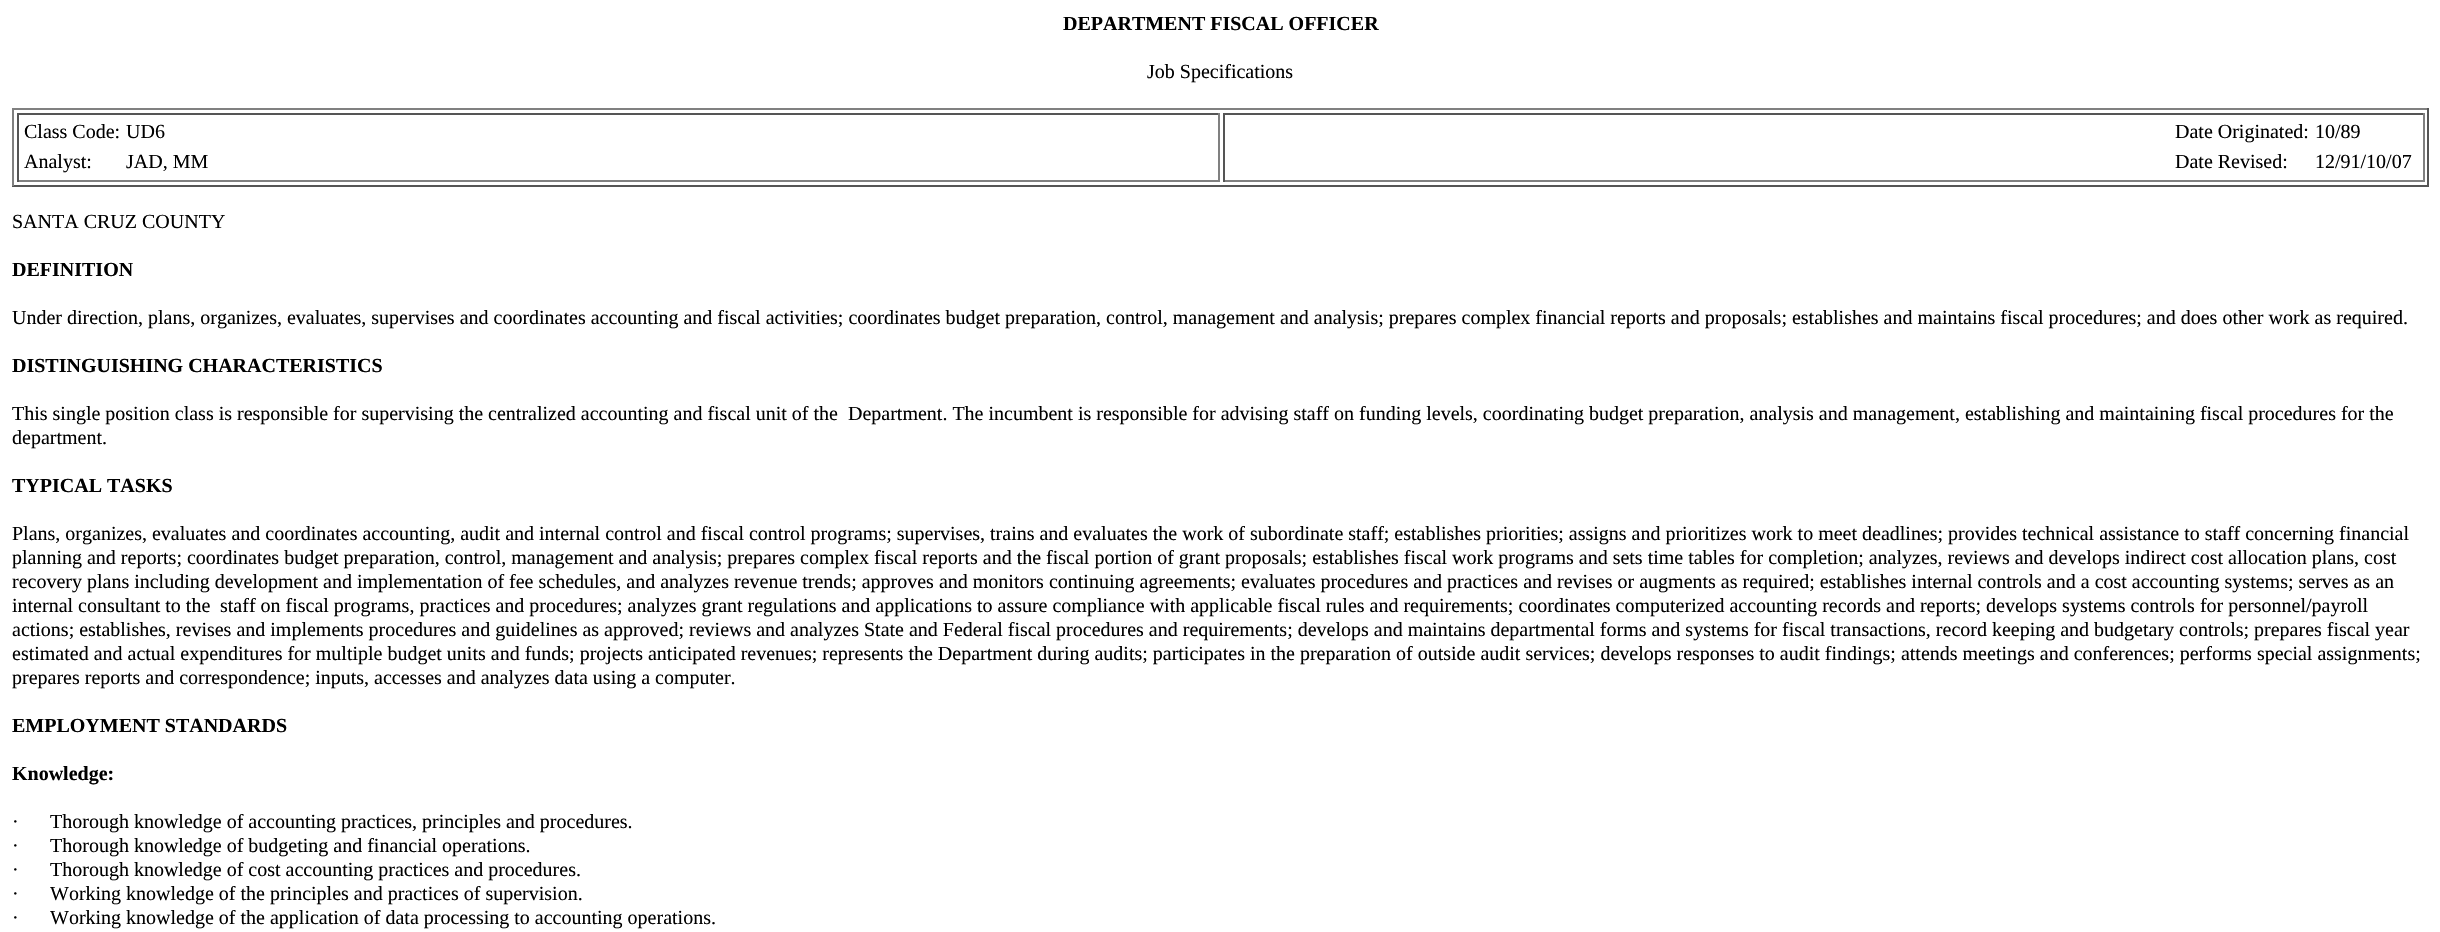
#include "include/core/SkBlurTypes.h"
#include "include/core/SkCanvas.h"
#include "include/core/SkData.h"
#include "include/core/SkFont.h"
#include "include/core/SkFontMgr.h"
#include "include/core/SkImage.h"
#include "include/core/SkMaskFilter.h"
#include "include/core/SkPaint.h"
#include "include/core/SkPathBuilder.h"
#include "include/core/SkTextBlob.h"
#include "include/effects/SkDashPathEffect.h"
#include "include/effects/SkGradientShader.h"
#include "include/utils/SkParsePath.h"

extern sk_sp<SkFontMgr> fontMgr;

void draw(SkCanvas* canvas) {
  SkPaint p;
  p.setAntiAlias(true);
  canvas->clear(SK_ColorWHITE);
  p.setColor(SkColorSetRGB(128, 128, 128));
  canvas->drawRect(SkRect::MakeLTRB(12, 108, 2429, 110), p);
  p.setColor(SkColorSetRGB(85, 85, 85));
  canvas->drawRect(SkRect::MakeLTRB(2427, 108, 2429, 186), p);
  canvas->drawRect(SkRect::MakeLTRB(12, 185, 2429, 187), p);
  p.setColor(SkColorSetRGB(128, 128, 128));
  canvas->drawRect(SkRect::MakeLTRB(12, 108, 14, 186), p);
  p.setColor(SkColorSetRGB(85, 85, 85));
  canvas->drawRect(SkRect::MakeLTRB(17, 113, 1220, 115), p);
  p.setColor(SkColorSetRGB(128, 128, 128));
  canvas->drawRect(SkRect::MakeLTRB(1218, 113, 1220, 182), p);
  canvas->drawRect(SkRect::MakeLTRB(17, 180, 1220, 182), p);
  p.setColor(SkColorSetRGB(85, 85, 85));
  canvas->drawRect(SkRect::MakeLTRB(17, 113, 19, 182), p);
  canvas->drawRect(SkRect::MakeLTRB(1223, 113, 2424, 115), p);
  p.setColor(SkColorSetRGB(128, 128, 128));
  canvas->drawRect(SkRect::MakeLTRB(2423, 113, 2425, 182), p);
  canvas->drawRect(SkRect::MakeLTRB(1223, 180, 2424, 182), p);
  p.setColor(SkColorSetRGB(85, 85, 85));
  canvas->drawRect(SkRect::MakeLTRB(1223, 113, 1225, 182), p);
  SkFont font1(fontMgr->matchFamilyStyle("Liberation Serif", SkFontStyle::Bold()), 20);
  font1.setSubpixel(true);
  p.setColor(SK_ColorBLACK);
  canvas->drawString("DEPARTMENT FISCAL OFFICER", 1063, 30, font1, p);
  SkFont font2(fontMgr->matchFamilyStyle("Liberation Serif", SkFontStyle::Normal()), 20);
  font2.setSubpixel(true);
  canvas->drawString("Job Specifications", 1147, 78, font2, p);
  canvas->drawString("Class Code:", 24, 138, font2, p);
  canvas->drawString("UD6", 126, 138, font2, p);
  canvas->drawString("Analyst:", 24, 168, font2, p);
  canvas->drawString("JAD, MM", 126, 168, font2, p);
  canvas->drawString("Date Originated:", 2175, 138, font2, p);
  canvas->drawString("10/89", 2315, 138, font2, p);
  canvas->drawString("Date Revised:", 2175, 168, font2, p);
  canvas->drawString("12/91/10/07", 2315, 168, font2, p);
  canvas->drawString("SANTA CRUZ COUNTY", 12, 228, font2, p);
  canvas->drawString("DEFINITION", 12, 276, font1, p);
  canvas->drawString("Under direction, plans, organizes, evaluates, supervises and coordinates accounting and fiscal activities; coordinates budget preparation, control, management and analysis; prepares complex financial reports and proposals; establishes and maintains fiscal procedures; and does other work as required.", 12, 324, font2, p);
  canvas->drawString("DISTINGUISHING CHARACTERISTICS", 12, 372, font1, p);
  canvas->drawString("This single position class is responsible for supervising the centralized accounting and fiscal unit of the", 12, 420, font2, p);
  canvas->drawString("Department. The incumbent is responsible for advising staff on funding levels, coordinating budget preparation, analysis and management, establishing and maintaining fiscal procedures for the", 848, 420, font2, p);
  canvas->drawString("department.", 12, 444, font2, p);
  canvas->drawString("TYPICAL TASKS", 12, 492, font1, p);
  canvas->drawString("Plans, organizes, evaluates and coordinates accounting, audit and internal control and fiscal control programs; supervises, trains and evaluates the work of subordinate staff; establishes priorities; assigns and prioritizes work to meet deadlines; provides technical assistance to staff concerning financial", 12, 540, font2, p);
  canvas->drawString("planning and reports; coordinates budget preparation, control, management and analysis; prepares complex fiscal reports and the fiscal portion of grant proposals; establishes fiscal work programs and sets time tables for completion; analyzes, reviews and develops indirect cost allocation plans, cost", 12, 564, font2, p);
  canvas->drawString("recovery plans including development and implementation of fee schedules, and analyzes revenue trends; approves and monitors continuing agreements; evaluates procedures and practices and revises or augments as required; establishes internal controls and a cost accounting systems; serves as an", 12, 588, font2, p);
  canvas->drawString("internal consultant to the", 12, 612, font2, p);
  canvas->drawString("staff on fiscal programs, practices and procedures; analyzes grant regulations and applications to assure compliance with applicable fiscal rules and requirements; coordinates computerized accounting records and reports; develops systems controls for personnel/payroll", 220, 612, font2, p);
  canvas->drawString("actions; establishes, revises and implements procedures and guidelines as approved; reviews and analyzes State and Federal fiscal procedures and requirements; develops and maintains departmental forms and systems for fiscal transactions, record keeping and budgetary controls; prepares fiscal year", 12, 636, font2, p);
  canvas->drawString("estimated and actual expenditures for multiple budget units and funds; projects anticipated revenues; represents the Department during audits; participates in the preparation of outside audit services; develops responses to audit findings; attends meetings and conferences; performs special assignments;", 12, 660, font2, p);
  canvas->drawString("prepares reports and correspondence; inputs, accesses and analyzes data using a computer.", 12, 684, font2, p);
  canvas->drawString("EMPLOYMENT STANDARDS", 12, 732, font1, p);
  canvas->drawString("Knowledge:", 12, 780, font1, p);
  canvas->drawString("·", 12, 828, font2, p);
  canvas->drawString("Thorough knowledge of accounting practices, principles and procedures.", 50, 828, font2, p);
  canvas->drawString("·", 12, 852, font2, p);
  canvas->drawString("Thorough knowledge of budgeting and financial operations.", 50, 852, font2, p);
  canvas->drawString("·", 12, 876, font2, p);
  canvas->drawString("Thorough knowledge of cost accounting practices and procedures.", 50, 876, font2, p);
  canvas->drawString("·", 12, 900, font2, p);
  canvas->drawString("Working knowledge of the principles and practices of supervision.", 50, 900, font2, p);
  canvas->drawString("·", 12, 924, font2, p);
  canvas->drawString("Working knowledge of the application of data processing to accounting operations.", 50, 924, font2, p);
}
